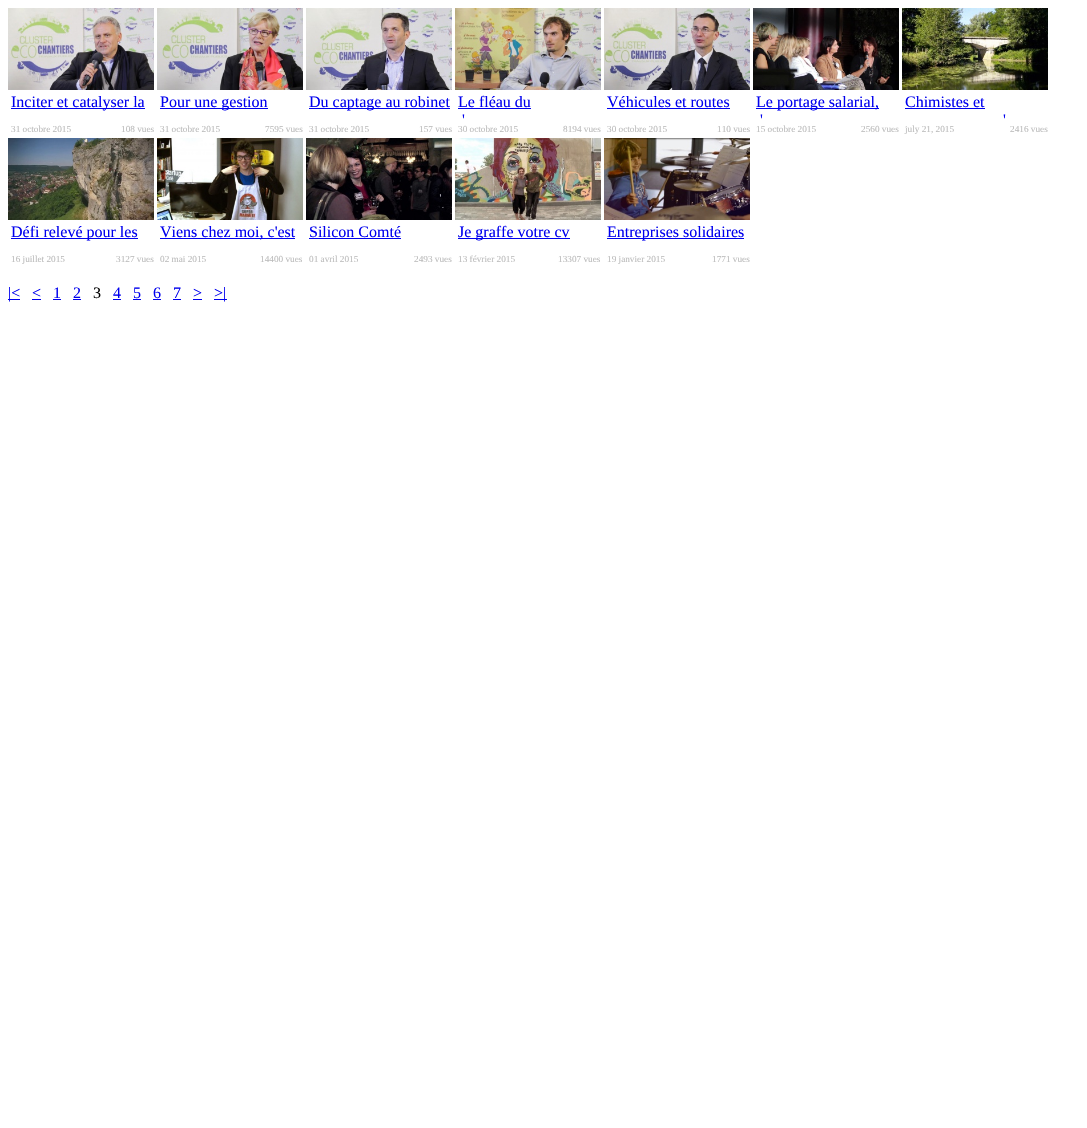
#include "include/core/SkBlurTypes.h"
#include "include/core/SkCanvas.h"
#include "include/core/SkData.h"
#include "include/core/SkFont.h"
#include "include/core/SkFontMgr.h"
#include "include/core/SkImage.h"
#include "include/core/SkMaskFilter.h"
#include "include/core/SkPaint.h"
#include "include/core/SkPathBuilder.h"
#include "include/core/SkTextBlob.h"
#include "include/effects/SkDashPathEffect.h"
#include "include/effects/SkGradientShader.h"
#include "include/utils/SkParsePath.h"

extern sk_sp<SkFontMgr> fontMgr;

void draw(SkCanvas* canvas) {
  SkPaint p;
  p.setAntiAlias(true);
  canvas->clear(SK_ColorWHITE);
  canvas->drawImageRect(SkImages::DeferredFromEncodedData(SkData::MakeFromFileName("images/1.png")), SkRect::MakeLTRB(8, 8, 154, 90), SkSamplingOptions());
  p.setColor(SkColorSetRGB(0, 0, 238));
  canvas->drawRect(SkRect::MakeLTRB(11, 108, 145, 109), p);
  canvas->drawImageRect(SkImages::DeferredFromEncodedData(SkData::MakeFromFileName("images/2.png")), SkRect::MakeLTRB(157, 8, 303, 90), SkSamplingOptions());
  canvas->drawRect(SkRect::MakeLTRB(160, 108, 268, 109), p);
  canvas->drawImageRect(SkImages::DeferredFromEncodedData(SkData::MakeFromFileName("images/3.png")), SkRect::MakeLTRB(306, 8, 452, 90), SkSamplingOptions());
  canvas->drawRect(SkRect::MakeLTRB(309, 108, 450, 109), p);
  canvas->drawImageRect(SkImages::DeferredFromEncodedData(SkData::MakeFromFileName("images/4.png")), SkRect::MakeLTRB(455, 8, 601, 90), SkSamplingOptions());
  canvas->drawRect(SkRect::MakeLTRB(458, 108, 531, 109), p);
  canvas->drawImageRect(SkImages::DeferredFromEncodedData(SkData::MakeFromFileName("images/5.png")), SkRect::MakeLTRB(604, 8, 750, 90), SkSamplingOptions());
  canvas->drawRect(SkRect::MakeLTRB(607, 108, 730, 109), p);
  canvas->drawImageRect(SkImages::DeferredFromEncodedData(SkData::MakeFromFileName("images/6.png")), SkRect::MakeLTRB(753, 8, 899, 90), SkSamplingOptions());
  canvas->drawRect(SkRect::MakeLTRB(756, 108, 879, 109), p);
  canvas->drawImageRect(SkImages::DeferredFromEncodedData(SkData::MakeFromFileName("images/7.png")), SkRect::MakeLTRB(902, 8, 1048, 90), SkSamplingOptions());
  canvas->drawRect(SkRect::MakeLTRB(905, 108, 985, 109), p);
  canvas->drawImageRect(SkImages::DeferredFromEncodedData(SkData::MakeFromFileName("images/8.png")), SkRect::MakeLTRB(8, 138, 154, 220), SkSamplingOptions());
  canvas->drawRect(SkRect::MakeLTRB(11, 238, 138, 239), p);
  canvas->drawImageRect(SkImages::DeferredFromEncodedData(SkData::MakeFromFileName("images/9.png")), SkRect::MakeLTRB(157, 138, 303, 220), SkSamplingOptions());
  canvas->drawRect(SkRect::MakeLTRB(160, 238, 295, 239), p);
  canvas->drawImageRect(SkImages::DeferredFromEncodedData(SkData::MakeFromFileName("images/10.png")), SkRect::MakeLTRB(306, 138, 452, 220), SkSamplingOptions());
  canvas->drawRect(SkRect::MakeLTRB(309, 238, 401, 239), p);
  canvas->drawImageRect(SkImages::DeferredFromEncodedData(SkData::MakeFromFileName("images/11.png")), SkRect::MakeLTRB(455, 138, 601, 220), SkSamplingOptions());
  canvas->drawRect(SkRect::MakeLTRB(458, 238, 570, 239), p);
  canvas->drawImageRect(SkImages::DeferredFromEncodedData(SkData::MakeFromFileName("images/12.png")), SkRect::MakeLTRB(604, 138, 750, 220), SkSamplingOptions());
  canvas->drawRect(SkRect::MakeLTRB(607, 238, 744, 239), p);
  canvas->drawRect(SkRect::MakeLTRB(8, 299, 20, 300), p);
  canvas->drawRect(SkRect::MakeLTRB(32, 299, 41, 300), p);
  canvas->drawRect(SkRect::MakeLTRB(53, 299, 61, 300), p);
  canvas->drawRect(SkRect::MakeLTRB(73, 299, 81, 300), p);
  canvas->drawRect(SkRect::MakeLTRB(113, 299, 121, 300), p);
  canvas->drawRect(SkRect::MakeLTRB(133, 299, 141, 300), p);
  canvas->drawRect(SkRect::MakeLTRB(153, 299, 161, 300), p);
  canvas->drawRect(SkRect::MakeLTRB(173, 299, 181, 300), p);
  canvas->drawRect(SkRect::MakeLTRB(193, 299, 202, 300), p);
  canvas->drawRect(SkRect::MakeLTRB(214, 299, 227, 300), p);
  SkFont font1(fontMgr->matchFamilyStyle("Liberation Serif", SkFontStyle::Normal()), 16);
  font1.setSubpixel(true);
  canvas->drawString("Inciter et catalyser la", 11, 107, font1, p);
  SkFont font2(fontMgr->matchFamilyStyle("Liberation Serif", SkFontStyle::Normal()), 9.25f);
  font2.setSubpixel(true);
  p.setColor(SkColorSetRGB(187, 187, 187));
  canvas->drawString("31 octobre 2015", 11, 132, font2, p);
  canvas->drawString("108 vues", 121, 132, font2, p);
  p.setColor(SkColorSetRGB(0, 0, 238));
  canvas->drawString("Pour une gestion", 160, 107, font1, p);
  p.setColor(SkColorSetRGB(187, 187, 187));
  canvas->drawString("31 octobre 2015", 160, 132, font2, p);
  canvas->drawString("7595 vues", 265, 132, font2, p);
  p.setColor(SkColorSetRGB(0, 0, 238));
  canvas->drawString("Du captage au robinet", 309, 107, font1, p);
  p.setColor(SkColorSetRGB(187, 187, 187));
  canvas->drawString("31 octobre 2015", 309, 132, font2, p);
  canvas->drawString("157 vues", 419, 132, font2, p);
  p.setColor(SkColorSetRGB(0, 0, 238));
  canvas->drawString("Le fléau du", 458, 107, font1, p);
  canvas->drawString("'", 462, 125, font1, p);
  p.setColor(SkColorSetRGB(187, 187, 187));
  canvas->drawString("30 octobre 2015", 458, 132, font2, p);
  canvas->drawString("8194 vues", 563, 132, font2, p);
  p.setColor(SkColorSetRGB(0, 0, 238));
  canvas->drawString("Véhicules et routes", 607, 107, font1, p);
  p.setColor(SkColorSetRGB(187, 187, 187));
  canvas->drawString("30 octobre 2015", 607, 132, font2, p);
  canvas->drawString("110 vues", 717, 132, font2, p);
  p.setColor(SkColorSetRGB(0, 0, 238));
  canvas->drawString("Le portage salarial,", 756, 107, font1, p);
  canvas->drawString("'", 760, 125, font1, p);
  p.setColor(SkColorSetRGB(187, 187, 187));
  canvas->drawString("15 octobre 2015", 756, 132, font2, p);
  canvas->drawString("2560 vues", 861, 132, font2, p);
  p.setColor(SkColorSetRGB(0, 0, 238));
  canvas->drawString("Chimistes et", 905, 107, font1, p);
  canvas->drawString("'", 1003, 125, font1, p);
  p.setColor(SkColorSetRGB(187, 187, 187));
  canvas->drawString("july 21, 2015", 905, 132, font2, p);
  canvas->drawString("2416 vues", 1010, 132, font2, p);
  p.setColor(SkColorSetRGB(0, 0, 238));
  canvas->drawString("Défi relevé pour les", 11, 237, font1, p);
  p.setColor(SkColorSetRGB(187, 187, 187));
  canvas->drawString("16 juillet 2015", 11, 262, font2, p);
  canvas->drawString("3127 vues", 116, 262, font2, p);
  p.setColor(SkColorSetRGB(0, 0, 238));
  canvas->drawString("Viens chez moi, c'est", 160, 237, font1, p);
  p.setColor(SkColorSetRGB(187, 187, 187));
  canvas->drawString("02 mai 2015", 160, 262, font2, p);
  canvas->drawString("14400 vues", 260, 262, font2, p);
  p.setColor(SkColorSetRGB(0, 0, 238));
  canvas->drawString("Silicon Comté", 309, 237, font1, p);
  p.setColor(SkColorSetRGB(187, 187, 187));
  canvas->drawString("01 avril 2015", 309, 262, font2, p);
  canvas->drawString("2493 vues", 414, 262, font2, p);
  p.setColor(SkColorSetRGB(0, 0, 238));
  canvas->drawString("Je graffe votre cv", 458, 237, font1, p);
  p.setColor(SkColorSetRGB(187, 187, 187));
  canvas->drawString("13 février 2015", 458, 262, font2, p);
  canvas->drawString("13307 vues", 558, 262, font2, p);
  p.setColor(SkColorSetRGB(0, 0, 238));
  canvas->drawString("Entreprises solidaires", 607, 237, font1, p);
  p.setColor(SkColorSetRGB(187, 187, 187));
  canvas->drawString("19 janvier 2015", 607, 262, font2, p);
  canvas->drawString("1771 vues", 712, 262, font2, p);
  p.setColor(SkColorSetRGB(0, 0, 238));
  canvas->drawString("|<", 8, 298, font1, p);
  canvas->drawString("<", 32, 298, font1, p);
  canvas->drawString("1", 53, 298, font1, p);
  canvas->drawString("2", 73, 298, font1, p);
  p.setColor(SK_ColorBLACK);
  canvas->drawString("3", 93, 298, font1, p);
  p.setColor(SkColorSetRGB(0, 0, 238));
  canvas->drawString("4", 113, 298, font1, p);
  canvas->drawString("5", 133, 298, font1, p);
  canvas->drawString("6", 153, 298, font1, p);
  canvas->drawString("7", 173, 298, font1, p);
  canvas->drawString(">", 193, 298, font1, p);
  canvas->drawString(">|", 214, 298, font1, p);
}
